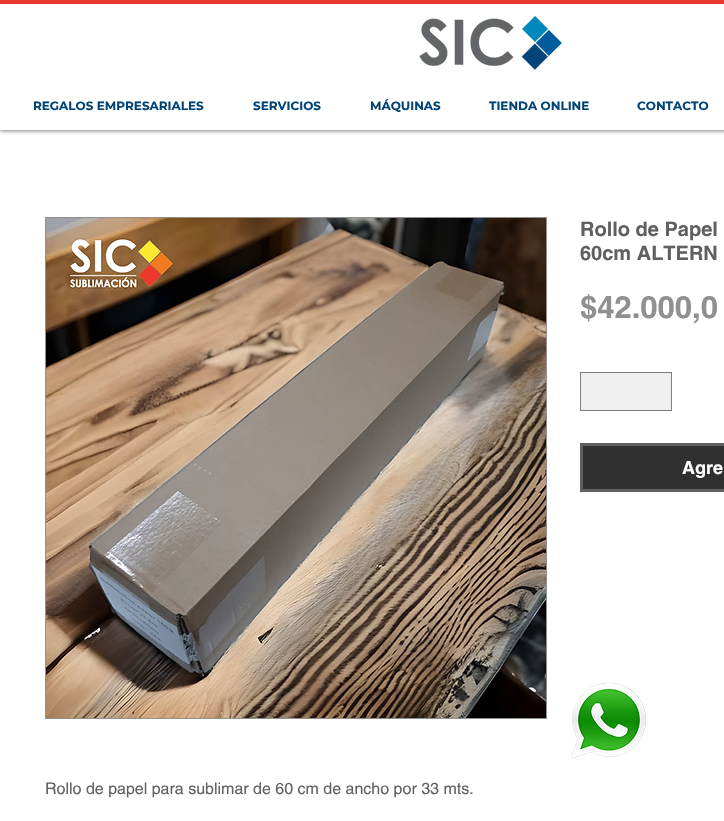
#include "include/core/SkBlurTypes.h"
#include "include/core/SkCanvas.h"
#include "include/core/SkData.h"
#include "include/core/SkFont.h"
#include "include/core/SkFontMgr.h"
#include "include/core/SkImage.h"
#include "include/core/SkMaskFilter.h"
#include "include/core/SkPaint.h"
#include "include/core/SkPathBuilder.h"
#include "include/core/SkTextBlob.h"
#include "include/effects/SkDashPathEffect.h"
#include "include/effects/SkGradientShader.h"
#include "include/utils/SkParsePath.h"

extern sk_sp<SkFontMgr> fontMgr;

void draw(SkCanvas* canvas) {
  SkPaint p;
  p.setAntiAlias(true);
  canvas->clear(SK_ColorWHITE);
  canvas->save();
  canvas->clipRect(SkRect::MakeLTRB(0, 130, 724, 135));
  p.setColor(SkColorSetARGB(179, 0, 0, 0));
  p.setMaskFilter(SkMaskFilter::MakeBlur(kNormal_SkBlurStyle, 2.5f));
  canvas->drawRect(SkRect::MakeLTRB(0, 0, 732, 130), p);
  p.setMaskFilter(nullptr);
  canvas->restore();
  p.setColor(SkColorSetRGB(236, 56, 46));
  canvas->drawRect(SkRect::MakeLTRB(0, 0, 724, 4), p);
  canvas->drawImageRect(SkImages::DeferredFromEncodedData(SkData::MakeFromFileName("images/1.png")), SkRect::MakeLTRB(419, 16, 562, 70), SkSamplingOptions());
  p.setColor(SkColorSetRGB(240, 240, 240));
  canvas->drawRect(SkRect::MakeLTRB(580.5f, 372.5f, 671.5f, 410.5f), p);
  p.setStyle(SkPaint::kStroke_Style);
  p.setStrokeWidth(1);
  p.setColor(SkColorSetRGB(125, 125, 125));
  canvas->drawRect(SkRect::MakeLTRB(580.5f, 372.5f, 671.5f, 410.5f), p);
  p.setStyle(SkPaint::kFill_Style);
  p.setColor(SkColorSetRGB(48, 48, 48));
  canvas->drawRect(SkRect::MakeLTRB(581.5f, 444.5f, 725.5f, 490.5f), p);
  p.setStyle(SkPaint::kStroke_Style);
  p.setStrokeWidth(3);
  p.setColor(SkColorSetRGB(96, 96, 96));
  canvas->drawRect(SkRect::MakeLTRB(581.5f, 444.5f, 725.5f, 490.5f), p);
  p.setStrokeWidth(1);
  p.setColor(SkColorSetRGB(144, 144, 144));
  canvas->drawRect(SkRect::MakeLTRB(45.5f, 217.5f, 546.5f, 718.5f), p);
  canvas->drawImageRect(SkImages::DeferredFromEncodedData(SkData::MakeFromFileName("images/2.png")), SkRect::MakeLTRB(46, 218, 546, 718), SkSamplingOptions());
  canvas->drawImageRect(SkImages::DeferredFromEncodedData(SkData::MakeFromFileName("images/3.png")), SkRect::MakeLTRB(571, 682, 646, 759), SkSamplingOptions());
  SkFont font1(fontMgr->matchFamilyStyle("Montserrat", SkFontStyle::Bold()), 12);
  font1.setSubpixel(true);
  p.setStyle(SkPaint::kFill_Style);
  p.setColor(SkColorSetRGB(0, 68, 119));
  canvas->drawString("REGALOS EMPRESARIALES", 33, 110, font1, p);
  canvas->drawString("SERVICIOS", 253, 110, font1, p);
  canvas->drawString("MÁQUINAS", 370, 110, font1, p);
  canvas->drawString("TIENDA ONLINE", 489, 110, font1, p);
  canvas->drawString("CONTACTO", 637, 110, font1, p);
  SkFont font2(fontMgr->matchFamilyStyle("helvetica", SkFontStyle::Bold()), 20);
  font2.setSubpixel(true);
  p.setColor(SkColorSetRGB(96, 96, 96));
  canvas->drawString("Rollo de Papel", 580, 236, font2, p);
  canvas->drawString("60cm ALTERN", 580, 260, font2, p);
  SkFont font3(fontMgr->matchFamilyStyle("helvetica", SkFontStyle::Bold()), 31);
  font3.setSubpixel(true);
  p.setColor(SkColorSetRGB(144, 144, 144));
  canvas->drawString("$42.000,0", 580, 318, font3, p);
  SkFont font4(fontMgr->matchFamilyStyle("helvetica", SkFontStyle::Bold()), 18);
  font4.setSubpixel(true);
  p.setColor(SK_ColorWHITE);
  canvas->drawString("Agre", 682, 474, font4, p);
  SkFont font5(fontMgr->matchFamilyStyle("helvetica", SkFontStyle::Normal()), 16);
  font5.setSubpixel(true);
  p.setColor(SkColorSetRGB(96, 96, 96));
  canvas->drawString("Rollo de papel para sublimar de 60 cm de ancho por 33 mts.", 45, 794, font5, p);
}
